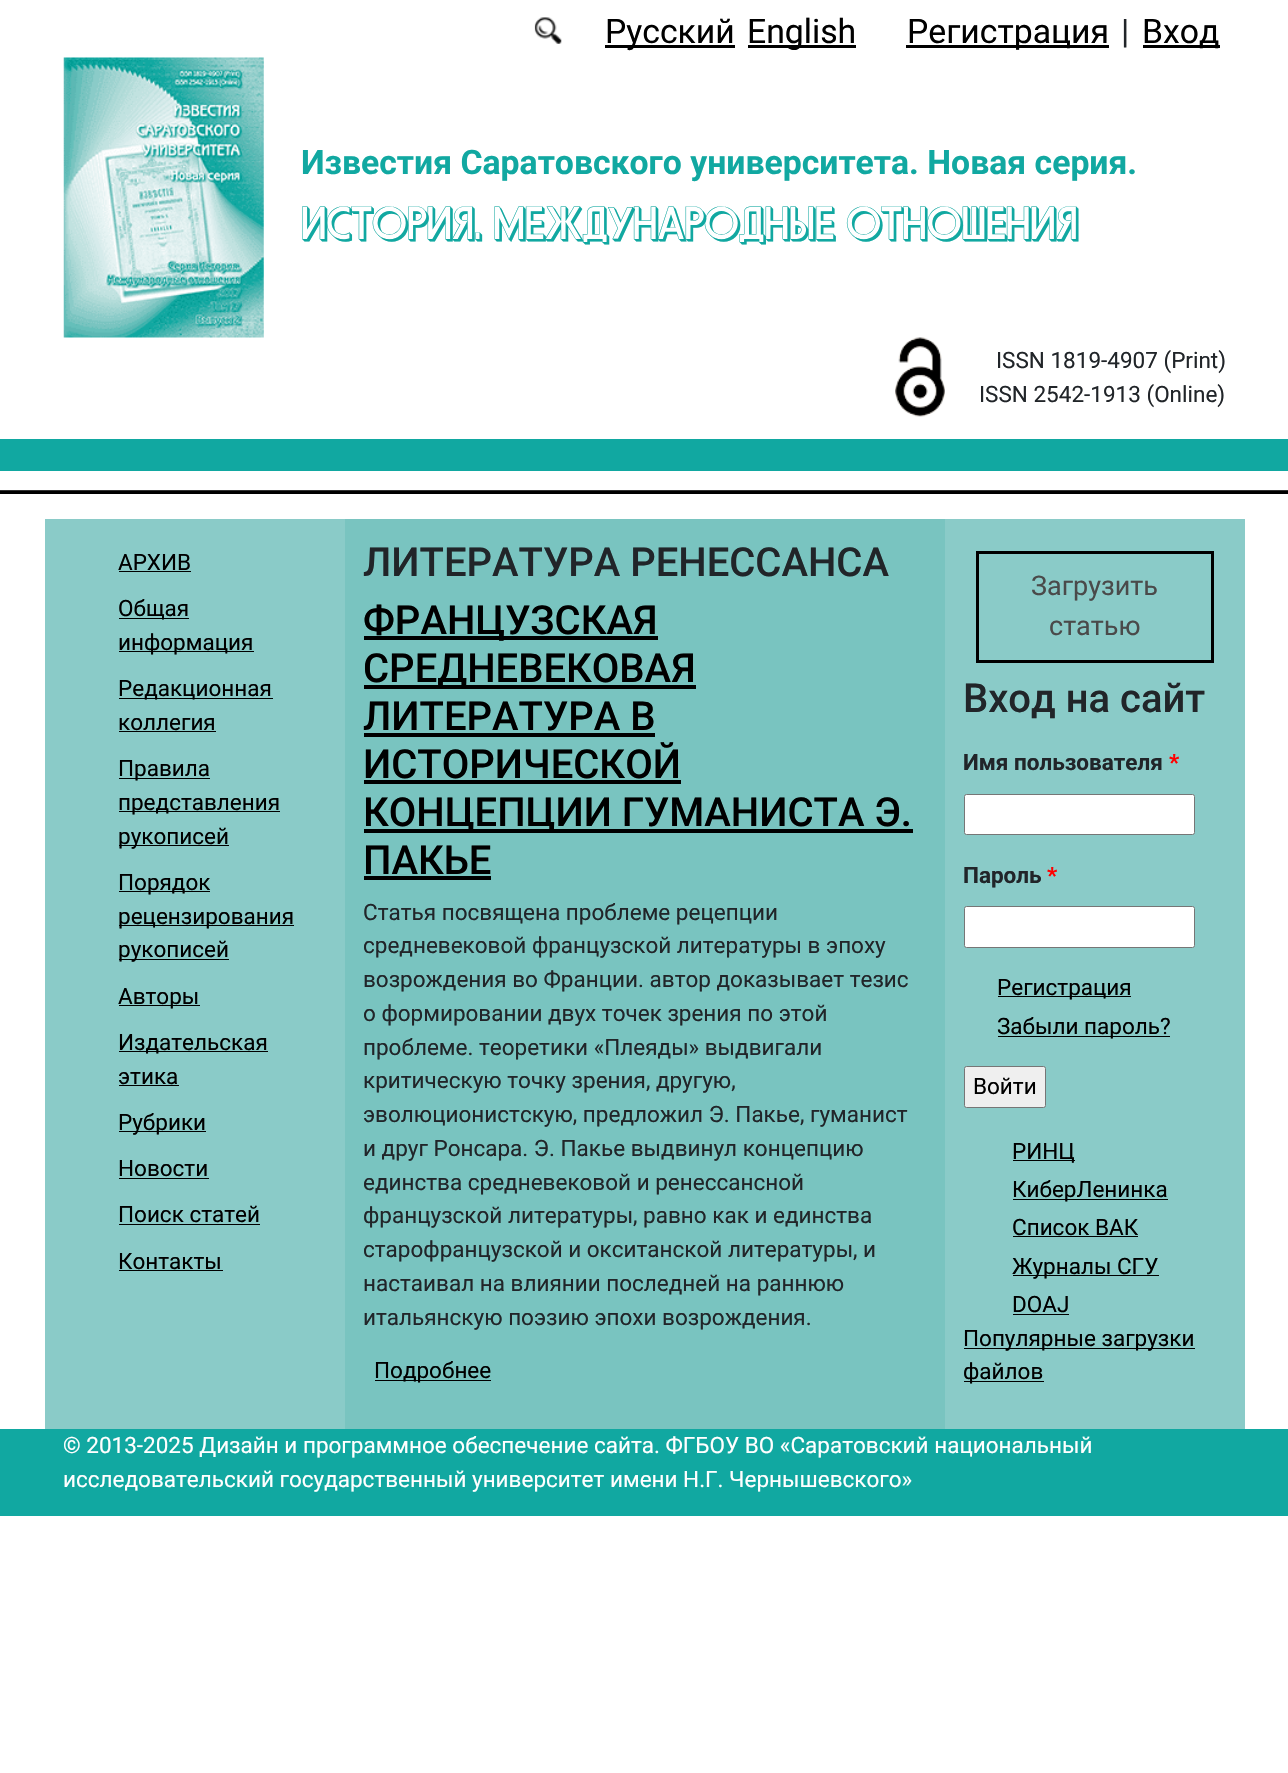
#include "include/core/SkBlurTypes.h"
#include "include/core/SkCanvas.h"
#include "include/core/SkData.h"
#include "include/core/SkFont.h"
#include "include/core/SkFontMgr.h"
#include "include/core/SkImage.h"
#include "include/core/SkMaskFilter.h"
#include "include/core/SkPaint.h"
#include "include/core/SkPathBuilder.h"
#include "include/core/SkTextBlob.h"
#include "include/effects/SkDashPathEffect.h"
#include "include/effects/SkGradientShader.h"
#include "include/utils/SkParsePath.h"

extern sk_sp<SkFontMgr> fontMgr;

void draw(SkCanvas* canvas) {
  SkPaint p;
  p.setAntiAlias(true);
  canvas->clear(SK_ColorWHITE);
  canvas->drawImageRect(SkImages::DeferredFromEncodedData(SkData::MakeFromFileName("images/1.png")), SkRect::MakeLTRB(534, 17, 562, 44), SkSamplingOptions());
  p.setColor(SK_ColorBLACK);
  canvas->drawRect(SkRect::MakeLTRB(605, 45, 735, 48), p);
  canvas->drawRect(SkRect::MakeLTRB(748, 45, 856, 48), p);
  canvas->drawRect(SkRect::MakeLTRB(906, 45, 1109, 48), p);
  canvas->drawRect(SkRect::MakeLTRB(1143, 45, 1220, 48), p);
  canvas->drawImageRect(SkImages::DeferredFromEncodedData(SkData::MakeFromFileName("images/2.png")), SkRect::MakeLTRB(63, 57, 264, 338), SkSamplingOptions());
  canvas->drawImageRect(SkImages::DeferredFromEncodedData(SkData::MakeFromFileName("images/3.png")), SkRect::MakeLTRB(895, 337, 945, 417), SkSamplingOptions());
  p.setColor(SkColorSetRGB(17, 168, 161));
  canvas->drawRect(SkRect::MakeLTRB(0, 439, 1288, 471), p);
  p.setColor(SkColorSetRGB(51, 51, 51));
  canvas->drawRect(SkRect::MakeLTRB(0, 490, 1288, 491), p);
  p.setColor(SK_ColorBLACK);
  canvas->drawRect(SkRect::MakeLTRB(0, 491, 1288, 494), p);
  p.setColor(SkColorSetRGB(138, 203, 200));
  canvas->drawRect(SkRect::MakeLTRB(45, 519, 345, 1429), p);
  p.setColor(SK_ColorBLACK);
  canvas->drawRect(SkRect::MakeLTRB(119, 571, 191, 572), p);
  canvas->drawRect(SkRect::MakeLTRB(119, 618, 189, 619), p);
  canvas->drawRect(SkRect::MakeLTRB(119, 651, 254, 652), p);
  canvas->drawRect(SkRect::MakeLTRB(119, 698, 273, 699), p);
  canvas->drawRect(SkRect::MakeLTRB(119, 731, 216, 732), p);
  canvas->drawRect(SkRect::MakeLTRB(119, 778, 210, 779), p);
  canvas->drawRect(SkRect::MakeLTRB(119, 811, 280, 812), p);
  canvas->drawRect(SkRect::MakeLTRB(119, 845, 229, 846), p);
  canvas->drawRect(SkRect::MakeLTRB(119, 891, 210, 892), p);
  canvas->drawRect(SkRect::MakeLTRB(119, 925, 294, 926), p);
  canvas->drawRect(SkRect::MakeLTRB(119, 959, 229, 960), p);
  canvas->drawRect(SkRect::MakeLTRB(119, 1005, 200, 1006), p);
  canvas->drawRect(SkRect::MakeLTRB(119, 1051, 268, 1052), p);
  canvas->drawRect(SkRect::MakeLTRB(119, 1085, 179, 1086), p);
  canvas->drawRect(SkRect::MakeLTRB(119, 1131, 206, 1132), p);
  canvas->drawRect(SkRect::MakeLTRB(119, 1178, 209, 1179), p);
  canvas->drawRect(SkRect::MakeLTRB(119, 1224, 260, 1225), p);
  canvas->drawRect(SkRect::MakeLTRB(119, 1270, 223, 1271), p);
  p.setColor(SkColorSetRGB(121, 196, 192));
  canvas->drawRect(SkRect::MakeLTRB(345, 519, 945, 1429), p);
  p.setColor(SK_ColorBLACK);
  canvas->drawRect(SkRect::MakeLTRB(364, 636, 658, 640), p);
  canvas->drawRect(SkRect::MakeLTRB(364, 685, 696, 689), p);
  canvas->drawRect(SkRect::MakeLTRB(364, 733, 655, 737), p);
  canvas->drawRect(SkRect::MakeLTRB(364, 780, 681, 784), p);
  canvas->drawRect(SkRect::MakeLTRB(364, 829, 913, 833), p);
  canvas->drawRect(SkRect::MakeLTRB(364, 876, 491, 880), p);
  canvas->drawRect(SkRect::MakeLTRB(375, 1380, 491, 1381), p);
  p.setColor(SkColorSetRGB(138, 203, 200));
  canvas->drawRect(SkRect::MakeLTRB(945, 519, 1245, 1429), p);
  p.setStyle(SkPaint::kStroke_Style);
  p.setStrokeWidth(3);
  p.setColor(SK_ColorBLACK);
  canvas->drawRect(SkRect::MakeLTRB(977.5f, 552.5f, 1212.5f, 661.5f), p);
  p.setStyle(SkPaint::kFill_Style);
  p.setColor(SK_ColorWHITE);
  canvas->drawRoundRect(SkRect::MakeLTRB(964.5f, 794.5f, 1194.5f, 834.5f), 2, 2, p);
  p.setStyle(SkPaint::kStroke_Style);
  p.setStrokeWidth(1);
  p.setColor(SkColorSetRGB(118, 118, 118));
  canvas->drawRoundRect(SkRect::MakeLTRB(964.5f, 794.5f, 1194.5f, 834.5f), 2, 2, p);
  p.setStyle(SkPaint::kFill_Style);
  p.setColor(SK_ColorWHITE);
  canvas->drawRoundRect(SkRect::MakeLTRB(964.5f, 906.5f, 1194.5f, 947.5f), 2, 2, p);
  p.setStyle(SkPaint::kStroke_Style);
  p.setColor(SkColorSetRGB(118, 118, 118));
  canvas->drawRoundRect(SkRect::MakeLTRB(964.5f, 906.5f, 1194.5f, 947.5f), 2, 2, p);
  p.setStyle(SkPaint::kFill_Style);
  p.setColor(SK_ColorBLACK);
  canvas->drawRect(SkRect::MakeLTRB(998, 996, 1131, 997), p);
  canvas->drawRect(SkRect::MakeLTRB(998, 1036, 1170, 1037), p);
  p.setColor(SkColorSetRGB(239, 239, 239));
  canvas->drawRoundRect(SkRect::MakeLTRB(964.5f, 1066.5f, 1045.5f, 1107.5f), 2, 2, p);
  p.setStyle(SkPaint::kStroke_Style);
  p.setColor(SkColorSetRGB(118, 118, 118));
  canvas->drawRoundRect(SkRect::MakeLTRB(964.5f, 1066.5f, 1045.5f, 1107.5f), 2, 2, p);
  p.setStyle(SkPaint::kFill_Style);
  p.setColor(SK_ColorBLACK);
  canvas->drawRect(SkRect::MakeLTRB(1013, 1160, 1075, 1161), p);
  canvas->drawRect(SkRect::MakeLTRB(1013, 1199, 1168, 1200), p);
  canvas->drawRect(SkRect::MakeLTRB(1013, 1236, 1138, 1237), p);
  canvas->drawRect(SkRect::MakeLTRB(1013, 1275, 1159, 1276), p);
  canvas->drawRect(SkRect::MakeLTRB(1013, 1314, 1069, 1315), p);
  canvas->drawRect(SkRect::MakeLTRB(964, 1348, 1195, 1349), p);
  canvas->drawRect(SkRect::MakeLTRB(964, 1381, 1044, 1382), p);
  p.setColor(SkColorSetRGB(17, 168, 161));
  canvas->drawRect(SkRect::MakeLTRB(0, 1429, 1288, 1516), p);
  SkFont font1(fontMgr->matchFamilyStyle("Roboto", SkFontStyle::Normal()), 33.75f);
  font1.setSubpixel(true);
  p.setColor(SK_ColorBLACK);
  canvas->drawString("Русский", 605, 43, font1, p);
  canvas->drawString("English", 747, 43, font1, p);
  canvas->drawString("Регистрация", 907, 43, font1, p);
  p.setColor(SkColorSetRGB(33, 37, 41));
  canvas->drawString("|", 1121, 43, font1, p);
  p.setColor(SK_ColorBLACK);
  canvas->drawString("Вход", 1142, 43, font1, p);
  SkFont font2(fontMgr->matchFamilyStyle("Roboto", SkFontStyle::Bold()), 33.75f);
  font2.setSubpixel(true);
  p.setColor(SkColorSetRGB(17, 168, 161));
  canvas->drawString("Известия Саратовского университета. Новая серия.", 301, 174, font2, p);
  SkFont font3(fontMgr->matchFamilyStyle("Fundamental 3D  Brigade", SkFontStyle::Normal()), 45);
  font3.setSubpixel(true);
  canvas->drawString("ИСТОРИЯ. МЕЖДУНАРОДНЫЕ ОТНОШЕНИЯ", 301, 239, font3, p);
  SkFont font4(fontMgr->matchFamilyStyle("Roboto", SkFontStyle::Normal()), 22.5f);
  font4.setSubpixel(true);
  p.setColor(SkColorSetRGB(33, 37, 41));
  canvas->drawString("ISSN 1819-4907 (Print)", 996, 368, font4, p);
  canvas->drawString("ISSN 2542-1913 (Online)", 979, 402, font4, p);
  p.setColor(SK_ColorBLACK);
  canvas->drawString("АРХИВ", 118, 570, font4, p);
  canvas->drawString("Общая", 118, 616, font4, p);
  canvas->drawString("информация", 118, 650, font4, p);
  canvas->drawString("Редакционная", 118, 696, font4, p);
  canvas->drawString("коллегия", 118, 730, font4, p);
  canvas->drawString("Правила", 118, 776, font4, p);
  canvas->drawString("представления", 118, 810, font4, p);
  canvas->drawString("рукописей", 118, 844, font4, p);
  canvas->drawString("Порядок", 118, 890, font4, p);
  canvas->drawString("рецензирования", 118, 924, font4, p);
  canvas->drawString("рукописей", 118, 957, font4, p);
  canvas->drawString("Авторы", 118, 1004, font4, p);
  canvas->drawString("Издательская", 118, 1050, font4, p);
  canvas->drawString("этика", 118, 1084, font4, p);
  canvas->drawString("Рубрики", 118, 1130, font4, p);
  canvas->drawString("Новости", 118, 1176, font4, p);
  canvas->drawString("Поиск статей", 118, 1222, font4, p);
  canvas->drawString("Контакты", 118, 1269, font4, p);
  SkFont font5(fontMgr->matchFamilyStyle("Roboto", SkFontStyle(500, SkFontStyle::kNormal_Width, SkFontStyle::kUpright_Slant)), 40);
  font5.setSubpixel(true);
  p.setColor(SkColorSetRGB(33, 37, 41));
  canvas->drawString("ЛИТЕРАТУРА РЕНЕССАНСА", 363, 576, font5, p);
  p.setColor(SK_ColorBLACK);
  canvas->drawString("ФРАНЦУЗСКАЯ", 363, 634, font5, p);
  canvas->drawString("СРЕДНЕВЕКОВАЯ", 363, 682, font5, p);
  canvas->drawString("ЛИТЕРАТУРА В", 363, 730, font5, p);
  canvas->drawString("ИСТОРИЧЕСКОЙ", 363, 778, font5, p);
  canvas->drawString("КОНЦЕПЦИИ ГУМАНИСТА Э.", 363, 826, font5, p);
  canvas->drawString("ПАКЬЕ", 363, 874, font5, p);
  p.setColor(SkColorSetRGB(33, 37, 41));
  canvas->drawString("Статья посвящена проблеме рецепции", 363, 920, font4, p);
  canvas->drawString("средневековой французской литературы в эпоху", 363, 953, font4, p);
  canvas->drawString("возрождения во Франции. автор доказывает тезис", 363, 987, font4, p);
  canvas->drawString("о формировании двух точек зрения по этой", 363, 1021, font4, p);
  canvas->drawString("проблеме. теоретики «Плеяды» выдвигали", 363, 1055, font4, p);
  canvas->drawString("критическую точку зрения, другую,", 363, 1088, font4, p);
  canvas->drawString("эволюционистскую, предложил Э. Пакье, гуманист", 363, 1122, font4, p);
  canvas->drawString("и друг Ронсара. Э. Пакье выдвинул концепцию", 363, 1156, font4, p);
  canvas->drawString("единства средневековой и ренессансной", 363, 1190, font4, p);
  canvas->drawString("французской литературы, равно как и единства", 363, 1223, font4, p);
  canvas->drawString("старофранцузской и окситанской литературы, и", 363, 1257, font4, p);
  canvas->drawString("настаивал на влиянии последней на раннюю", 363, 1291, font4, p);
  canvas->drawString("итальянскую поэзию эпохи возрождения.", 363, 1325, font4, p);
  p.setColor(SK_ColorBLACK);
  canvas->drawString("Подробнее", 374, 1378, font4, p);
  SkFont font6(fontMgr->matchFamilyStyle("Roboto", SkFontStyle::Normal()), 27);
  font6.setSubpixel(true);
  p.setColor(SkColorSetRGB(74, 74, 74));
  canvas->drawString("Загрузить", 1031, 595, font6, p);
  canvas->drawString("статью", 1049, 635, font6, p);
  p.setColor(SkColorSetRGB(33, 37, 41));
  canvas->drawString("Вход на сайт", 963, 712, font5, p);
  SkFont font7(fontMgr->matchFamilyStyle("Roboto", SkFontStyle::Bold()), 22.5f);
  font7.setSubpixel(true);
  canvas->drawString("Имя пользователя", 963, 770, font7, p);
  p.setColor(SkColorSetRGB(255, 0, 0));
  canvas->drawString("*", 1169, 770, font7, p);
  p.setColor(SkColorSetRGB(33, 37, 41));
  canvas->drawString("Пароль", 963, 883, font7, p);
  p.setColor(SkColorSetRGB(255, 0, 0));
  canvas->drawString("*", 1047, 883, font7, p);
  p.setColor(SK_ColorBLACK);
  canvas->drawString("Регистрация", 997, 995, font4, p);
  canvas->drawString("Забыли пароль?", 997, 1034, font4, p);
  canvas->drawString("Войти", 973, 1094, font4, p);
  canvas->drawString("РИНЦ", 1012, 1159, font4, p);
  canvas->drawString("КиберЛенинка", 1012, 1197, font4, p);
  canvas->drawString("Список ВАК", 1012, 1235, font4, p);
  canvas->drawString("Журналы СГУ", 1012, 1274, font4, p);
  canvas->drawString("DOAJ", 1012, 1312, font4, p);
  canvas->drawString("Популярные загрузки", 963, 1346, font4, p);
  canvas->drawString("файлов", 963, 1379, font4, p);
  p.setColor(SK_ColorWHITE);
  canvas->drawString("© 2013-2025 Дизайн и программное обеспечение сайта. ФГБОУ ВО «Саратовский национальный", 63, 1453, font4, p);
  canvas->drawString("исследовательский государственный университет имени Н.Г. Чернышевского»", 63, 1487, font4, p);
}
